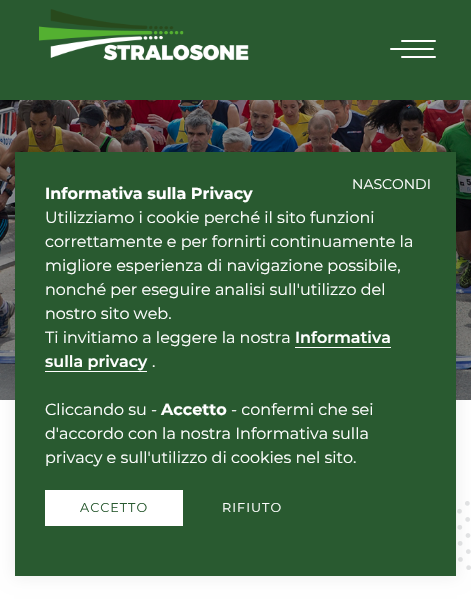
#include "include/core/SkBlurTypes.h"
#include "include/core/SkCanvas.h"
#include "include/core/SkData.h"
#include "include/core/SkFont.h"
#include "include/core/SkFontMgr.h"
#include "include/core/SkImage.h"
#include "include/core/SkMaskFilter.h"
#include "include/core/SkPaint.h"
#include "include/core/SkPathBuilder.h"
#include "include/core/SkTextBlob.h"
#include "include/effects/SkDashPathEffect.h"
#include "include/effects/SkGradientShader.h"
#include "include/utils/SkParsePath.h"

extern sk_sp<SkFontMgr> fontMgr;

void draw(SkCanvas* canvas) {
  SkPaint p;
  p.setAntiAlias(true);
  auto spacedText = [&](const char* s, float x, float y, const SkFont& font, const SkPaint& ink, float letter, float word) {
    std::vector<SkGlyphID> glyphs(font.countText(s, strlen(s), SkTextEncoding::kUTF8));
    std::vector<float> xs(glyphs.size());
    font.textToGlyphs(s, strlen(s), SkTextEncoding::kUTF8, glyphs);
    font.getXPos(glyphs, xs, x);
    float extra = 0;
    for (size_t i = 0; i < glyphs.size(); i++) {
      xs[i] += extra;
      extra += letter + word * (glyphs[i] == font.unicharToGlyph(' '));
    }
    canvas->drawTextBlob(SkTextBlob::MakeFromPosHGlyphs(glyphs, xs, y, font), 0, 0, ink);
  };
  canvas->clear(SK_ColorWHITE);
  p.setColor(SkColorSetRGB(41, 90, 48));
  canvas->drawRect(SkRect::MakeLTRB(0, 0, 471, 100), p);
  canvas->drawImageRect(SkImages::DeferredFromEncodedData(SkData::MakeFromFileName("images/1.png")), SkRect::MakeLTRB(39, 9, 249, 61), SkSamplingOptions());
  p.setColor(SK_ColorWHITE);
  canvas->drawRoundRect(SkRect::MakeLTRB(401, 40, 436, 42), 1, 1, p);
  canvas->drawRoundRect(SkRect::MakeLTRB(390, 48, 434, 50), 1, 1, p);
  canvas->drawRoundRect(SkRect::MakeLTRB(401, 56, 436, 58), 1, 1, p);
  canvas->drawImageRect(SkImages::DeferredFromEncodedData(SkData::MakeFromFileName("images/2.png")), SkRect::MakeLTRB(457, 501, 471, 570), SkSamplingOptions());
  canvas->drawImageRect(SkImages::DeferredFromEncodedData(SkData::MakeFromFileName("images/3.png")), SkRect::MakeLTRB(0, 100, 471, 400), SkSamplingOptions());
  p.setColor(SkColorSetARGB(18, 0, 0, 0));
  p.setMaskFilter(SkMaskFilter::MakeBlur(kNormal_SkBlurStyle, 7.5f));
  canvas->drawRect(SkRect::MakeLTRB(14, 151, 457, 577), p);
  p.setMaskFilter(nullptr);
  p.setColor(SkColorSetRGB(41, 90, 48));
  canvas->drawRect(SkRect::MakeLTRB(15, 152, 456, 576), p);
  p.setColor(SK_ColorWHITE);
  canvas->drawRect(SkRect::MakeLTRB(295, 347, 391, 348), p);
  canvas->drawRect(SkRect::MakeLTRB(45, 371, 147, 372), p);
  canvas->drawRect(SkRect::MakeLTRB(45, 490, 183, 526), p);
  SkFont font1(fontMgr->matchFamilyStyle("Montserrat", SkFontStyle::Normal()), 14);
  font1.setSubpixel(true);
  canvas->drawString("NASCONDI", 352, 189, font1, p);
  SkFont font2(fontMgr->matchFamilyStyle("Montserrat", SkFontStyle::Bold()), 16);
  font2.setSubpixel(true);
  canvas->drawString("Informativa sulla Privacy", 45, 199, font2, p);
  SkFont font3(fontMgr->matchFamilyStyle("Montserrat", SkFontStyle::Normal()), 16);
  font3.setSubpixel(true);
  canvas->drawString("Utilizziamo i cookie perché il sito funzioni", 45, 223, font3, p);
  canvas->drawString("correttamente e per fornirti continuamente la", 45, 247, font3, p);
  canvas->drawString("migliore esperienza di navigazione possibile,", 45, 271, font3, p);
  canvas->drawString("nonché per eseguire analisi sull'utilizzo del", 45, 295, font3, p);
  canvas->drawString("nostro sito web.", 45, 319, font3, p);
  canvas->drawString("Ti invitiamo a leggere la nostra", 45, 343, font3, p);
  SkFont font4(fontMgr->matchFamilyStyle("Montserrat", SkFontStyle(600, SkFontStyle::kNormal_Width, SkFontStyle::kUpright_Slant)), 16);
  font4.setSubpixel(true);
  canvas->drawString("Informativa", 295, 343, font4, p);
  canvas->drawString("sulla privacy", 45, 367, font4, p);
  canvas->drawString(".", 152, 367, font3, p);
  canvas->drawString("Cliccando su -", 45, 415, font3, p);
  canvas->drawString("Accetto", 161, 415, font2, p);
  canvas->drawString("- confermi che sei", 231, 415, font3, p);
  canvas->drawString("d'accordo con la nostra Informativa sulla", 45, 439, font3, p);
  canvas->drawString("privacy e sull'utilizzo di cookies nel sito.", 45, 463, font3, p);
  SkFont font5(fontMgr->matchFamilyStyle("Montserrat", SkFontStyle::Normal()), 12.75f);
  font5.setSubpixel(true);
  p.setColor(SkColorSetRGB(41, 90, 48));
  spacedText("ACCETTO", 80, 512, font5, p, 1, 0);
  p.setColor(SK_ColorWHITE);
  spacedText("RIFIUTO", 222, 512, font5, p, 1, 0);
}
